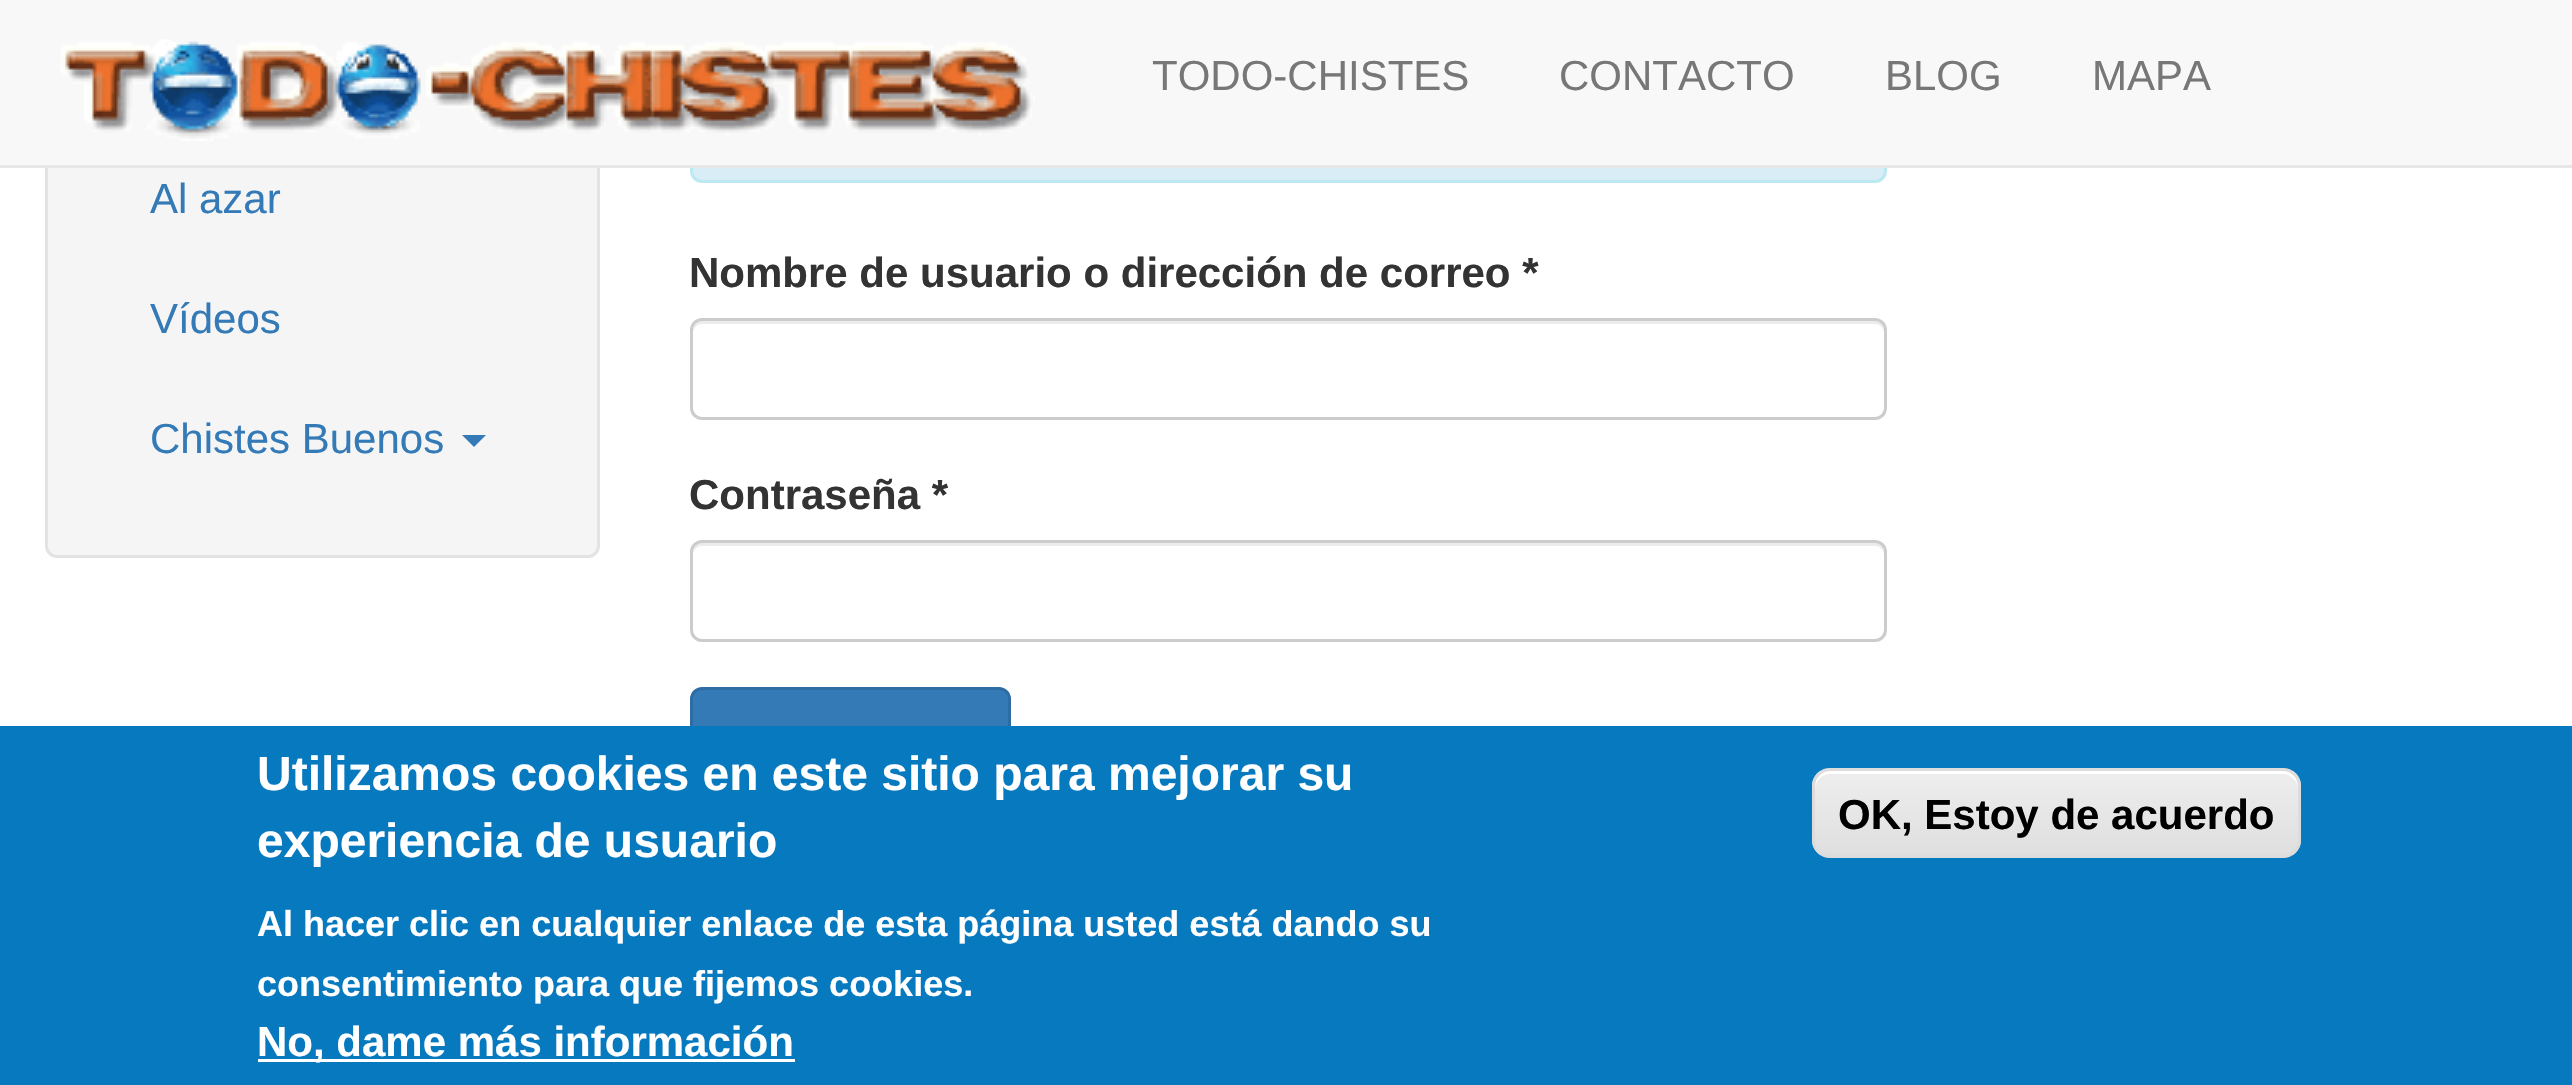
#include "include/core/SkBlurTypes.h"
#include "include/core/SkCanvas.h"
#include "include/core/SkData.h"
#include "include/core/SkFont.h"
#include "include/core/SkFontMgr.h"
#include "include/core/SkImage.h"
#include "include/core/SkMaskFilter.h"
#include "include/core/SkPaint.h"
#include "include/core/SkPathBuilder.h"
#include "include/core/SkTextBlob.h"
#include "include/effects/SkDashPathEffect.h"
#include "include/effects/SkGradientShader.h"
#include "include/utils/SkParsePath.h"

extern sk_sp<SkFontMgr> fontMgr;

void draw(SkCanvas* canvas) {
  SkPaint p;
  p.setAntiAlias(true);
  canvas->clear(SK_ColorWHITE);
  p.setColor(SkColorSetRGB(245, 245, 245));
  canvas->drawRoundRect(SkRect::MakeLTRB(46.5f, -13.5f, 598.5f, 556.5f), 10.5f, 10.5f, p);
  p.setStyle(SkPaint::kStroke_Style);
  p.setStrokeWidth(3);
  p.setColor(SkColorSetRGB(227, 227, 227));
  canvas->drawRoundRect(SkRect::MakeLTRB(46.5f, -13.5f, 598.5f, 556.5f), 10.5f, 10.5f, p);
  p.setStyle(SkPaint::kFill_Style);
  p.setColor(SkColorSetRGB(217, 237, 247));
  canvas->drawRoundRect(SkRect::MakeLTRB(691.5f, -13.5f, 1885.5f, 181.5f), 10.5f, 10.5f, p);
  p.setStyle(SkPaint::kStroke_Style);
  p.setColor(SkColorSetRGB(188, 232, 241));
  canvas->drawRoundRect(SkRect::MakeLTRB(691.5f, -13.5f, 1885.5f, 181.5f), 10.5f, 10.5f, p);
  p.setStyle(SkPaint::kFill_Style);
  p.setColor(SkColorSetRGB(248, 248, 248));
  canvas->drawRect(SkRect::MakeLTRB(0, 0, 2572, 165), p);
  p.setColor(SkColorSetRGB(231, 231, 231));
  canvas->drawRect(SkRect::MakeLTRB(0, 165, 2572, 168), p);
  canvas->drawImageRect(SkImages::DeferredFromEncodedData(SkData::MakeFromFileName("images/1.png")), SkRect::MakeLTRB(60, 39, 1035, 141), SkSamplingOptions());
  p.setColor(SkColorSetRGB(51, 122, 183));
  canvas->drawPath(SkPathBuilder().moveTo(462, 435).lineTo(486, 435).lineTo(474, 447).close().detach(), p);
  p.setColor(SkColorSetRGB(236, 236, 236));
  canvas->drawPath(SkPathBuilder().moveTo(702, 324).lineTo(1875, 324).cubicTo(1880, 324, 1884, 328, 1884, 333).lineTo(1884, 330).cubicTo(1884, 325, 1880, 321, 1875, 321).lineTo(702, 321).cubicTo(697, 321, 693, 325, 693, 330).lineTo(693, 333).cubicTo(693, 328, 697, 324, 702, 324).close().detach(), p);
  p.setStyle(SkPaint::kStroke_Style);
  p.setColor(SkColorSetRGB(204, 204, 204));
  canvas->drawRoundRect(SkRect::MakeLTRB(691.5f, 319.5f, 1885.5f, 418.5f), 10.5f, 10.5f, p);
  p.setStyle(SkPaint::kFill_Style);
  p.setColor(SkColorSetRGB(236, 236, 236));
  canvas->drawPath(SkPathBuilder().moveTo(702, 546).lineTo(1875, 546).cubicTo(1880, 546, 1884, 550, 1884, 555).lineTo(1884, 552).cubicTo(1884, 547, 1880, 543, 1875, 543).lineTo(702, 543).cubicTo(697, 543, 693, 547, 693, 552).lineTo(693, 555).cubicTo(693, 550, 697, 546, 702, 546).close().detach(), p);
  p.setStyle(SkPaint::kStroke_Style);
  p.setColor(SkColorSetRGB(204, 204, 204));
  canvas->drawRoundRect(SkRect::MakeLTRB(691.5f, 541.5f, 1885.5f, 640.5f), 10.5f, 10.5f, p);
  p.setStyle(SkPaint::kFill_Style);
  p.setColor(SkColorSetRGB(51, 122, 183));
  canvas->drawRoundRect(SkRect::MakeLTRB(691.5f, 688.5f, 1009.5f, 787.5f), 10.5f, 10.5f, p);
  p.setStyle(SkPaint::kStroke_Style);
  p.setColor(SkColorSetRGB(46, 109, 164));
  canvas->drawRoundRect(SkRect::MakeLTRB(691.5f, 688.5f, 1009.5f, 787.5f), 10.5f, 10.5f, p);
  p.setStyle(SkPaint::kFill_Style);
  p.setColor(SkColorSetRGB(7, 121, 191));
  canvas->drawRect(SkRect::MakeLTRB(0, 726, 2572, 1085), p);
  p.setColor(SK_ColorWHITE);
  canvas->drawRect(SkRect::MakeLTRB(258, 1059, 795, 1062), p);
  canvas->save();
  canvas->clipPath(SkPathBuilder().moveTo(1830, 768).lineTo(2283, 768).cubicTo(2293, 768, 2301, 776, 2301, 786).lineTo(2301, 840).cubicTo(2301, 850, 2293, 858, 2283, 858).lineTo(1830, 858).cubicTo(1820, 858, 1812, 850, 1812, 840).lineTo(1812, 786).cubicTo(1812, 776, 1820, 768, 1830, 768).close().detach(), true);
  {
    const SkColor colors[] = {SkColorSetRGB(237, 237, 237), SkColorSetRGB(223, 223, 223)};
    const float stops[] = {0.05f, 1};
    const SkPoint ends[] = {{2057, 771}, {2057, 855}};
    p.setShader(SkGradientShader::MakeLinear(ends, colors, stops, 2, SkTileMode::kClamp));
    p.setAlpha(255);
  }
  canvas->drawRect(SkRect::MakeLTRB(1812, 771, 2301, 855), p);
  canvas->restore();
  p.setShader(nullptr);
  p.setColor(SK_ColorWHITE);
  canvas->drawPath(SkPathBuilder().moveTo(1830, 774).lineTo(2283, 774).cubicTo(2291, 774, 2298, 781, 2298, 789).lineTo(2298, 786).cubicTo(2298, 778, 2291, 771, 2283, 771).lineTo(1830, 771).cubicTo(1822, 771, 1815, 778, 1815, 786).lineTo(1815, 789).cubicTo(1815, 781, 1822, 774, 1830, 774).close().detach(), p);
  p.setStyle(SkPaint::kStroke_Style);
  p.setColor(SkColorSetRGB(220, 220, 220));
  canvas->drawRoundRect(SkRect::MakeLTRB(1813.5f, 769.5f, 2299.5f, 856.5f), 16.5f, 16.5f, p);
  SkFont font1(fontMgr->matchFamilyStyle("Liberation Sans", SkFontStyle::Normal()), 42);
  font1.setSubpixel(true);
  p.setStyle(SkPaint::kFill_Style);
  p.setColor(SkColorSetRGB(119, 119, 119));
  canvas->drawString("TODO-CHISTES", 1152, 90, font1, p);
  canvas->drawString("CONTACTO", 1559, 90, font1, p);
  canvas->drawString("BLOG", 1885, 90, font1, p);
  canvas->drawString("MAPA", 2092, 90, font1, p);
  p.setColor(SkColorSetRGB(51, 122, 183));
  canvas->drawString("Al azar", 150, 213, font1, p);
  canvas->drawString("Vídeos", 150, 333, font1, p);
  canvas->drawString("Chistes Buenos", 150, 453, font1, p);
  SkFont font2(fontMgr->matchFamilyStyle("Liberation Sans", SkFontStyle::Bold()), 42);
  font2.setSubpixel(true);
  p.setColor(SkColorSetRGB(51, 51, 51));
  canvas->drawString("Nombre de usuario o dirección de correo *", 689, 287, font2, p);
  canvas->drawString("Contraseña *", 689, 509, font2, p);
  SkFont font3(fontMgr->matchFamilyStyle("Liberation Sans", SkFontStyle::Bold()), 48);
  font3.setSubpixel(true);
  p.setColor(SK_ColorWHITE);
  canvas->drawString("Utilizamos cookies en este sitio para mejorar su", 257, 790, font3, p);
  canvas->drawString("experiencia de usuario", 257, 857, font3, p);
  SkFont font4(fontMgr->matchFamilyStyle("Liberation Sans", SkFontStyle::Bold()), 36);
  font4.setSubpixel(true);
  canvas->drawString("Al hacer clic en cualquier enlace de esta página usted está dando su", 257, 936, font4, p);
  canvas->drawString("consentimiento para que fijemos cookies.", 257, 996, font4, p);
  canvas->drawString("No, dame más información", 257, 1056, font2, p);
  p.setColor(SK_ColorBLACK);
  canvas->drawString("OK, Estoy de acuerdo", 1838, 829, font2, p);
}
